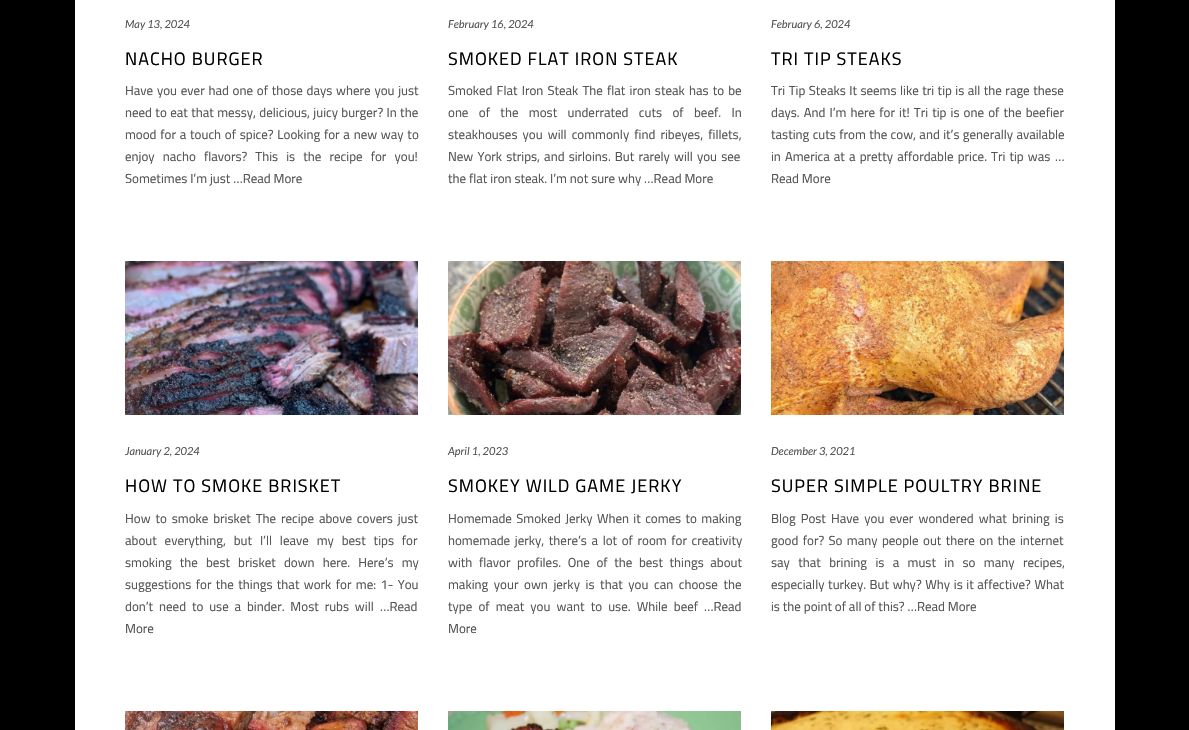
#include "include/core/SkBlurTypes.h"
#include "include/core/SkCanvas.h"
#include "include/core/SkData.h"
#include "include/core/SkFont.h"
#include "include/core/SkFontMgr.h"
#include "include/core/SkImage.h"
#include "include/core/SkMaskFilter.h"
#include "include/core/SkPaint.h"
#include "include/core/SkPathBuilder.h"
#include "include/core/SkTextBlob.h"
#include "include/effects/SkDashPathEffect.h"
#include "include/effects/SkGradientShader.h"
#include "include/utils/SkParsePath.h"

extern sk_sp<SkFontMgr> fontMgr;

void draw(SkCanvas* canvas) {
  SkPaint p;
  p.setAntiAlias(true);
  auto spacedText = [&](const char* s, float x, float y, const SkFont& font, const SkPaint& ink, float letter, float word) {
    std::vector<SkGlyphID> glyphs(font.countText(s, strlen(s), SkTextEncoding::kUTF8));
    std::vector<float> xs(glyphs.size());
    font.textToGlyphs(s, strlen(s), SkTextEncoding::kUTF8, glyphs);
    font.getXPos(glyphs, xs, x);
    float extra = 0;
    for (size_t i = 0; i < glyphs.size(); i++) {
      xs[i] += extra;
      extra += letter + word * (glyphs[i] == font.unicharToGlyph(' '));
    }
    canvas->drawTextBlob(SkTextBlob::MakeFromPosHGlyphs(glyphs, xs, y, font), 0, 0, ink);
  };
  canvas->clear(SK_ColorBLACK);
  p.setColor(SK_ColorWHITE);
  canvas->drawRect(SkRect::MakeLTRB(75, 0, 1115, 730), p);
  canvas->drawImageRect(SkImages::DeferredFromEncodedData(SkData::MakeFromFileName("images/1.png")), SkRect::MakeLTRB(125, 261, 418, 415), SkSamplingOptions());
  canvas->drawImageRect(SkImages::DeferredFromEncodedData(SkData::MakeFromFileName("images/2.png")), SkRect::MakeLTRB(448, 261, 741, 415), SkSamplingOptions());
  canvas->drawImageRect(SkImages::DeferredFromEncodedData(SkData::MakeFromFileName("images/3.png")), SkRect::MakeLTRB(771, 261, 1064, 415), SkSamplingOptions());
  canvas->drawImageRect(SkImages::DeferredFromEncodedData(SkData::MakeFromFileName("images/4.png")), SkRect::MakeLTRB(125, 711, 418, 730), SkSamplingOptions());
  canvas->drawImageRect(SkImages::DeferredFromEncodedData(SkData::MakeFromFileName("images/5.png")), SkRect::MakeLTRB(448, 711, 741, 730), SkSamplingOptions());
  canvas->drawImageRect(SkImages::DeferredFromEncodedData(SkData::MakeFromFileName("images/6.png")), SkRect::MakeLTRB(771, 711, 1064, 730), SkSamplingOptions());
  SkFont font1(fontMgr->matchFamilyStyle("Lato", SkFontStyle::Italic()), 11);
  font1.setSubpixel(true);
  p.setColor(SkColorSetRGB(84, 84, 84));
  canvas->drawString("May 13, 2024", 125, 28, font1, p);
  SkFont font2(fontMgr->matchFamilyStyle("Cairo", SkFontStyle::Normal()), 18);
  font2.setSubpixel(true);
  p.setColor(SK_ColorBLACK);
  spacedText("NACHO BURGER", 125, 65, font2, p, 1, 0);
  SkFont font3(fontMgr->matchFamilyStyle("Cairo", SkFontStyle::Normal()), 13);
  font3.setSubpixel(true);
  p.setColor(SkColorSetRGB(84, 84, 84));
  spacedText("Have you ever had one of those days where you just", 125, 95, font3, p, 0, 0.9f);
  spacedText("need to eat that messy, delicious, juicy burger? In the", 125, 117, font3, p, 0, 0.5f);
  spacedText("mood for a touch of spice? Looking for a new way to", 125, 139, font3, p, 0, 0.9f);
  spacedText("enjoy nacho flavors? This is the recipe for you!", 125, 161, font3, p, 0, 5.25f);
  canvas->drawString("Sometimes I’m just …Read More", 125, 183, font3, p);
  canvas->drawString("February 16, 2024", 448, 28, font1, p);
  p.setColor(SK_ColorBLACK);
  spacedText("SMOKED FLAT IRON STEAK", 448, 65, font2, p, 1, 0);
  p.setColor(SkColorSetRGB(84, 84, 84));
  spacedText("Smoked Flat Iron Steak The flat iron steak has to be", 448, 95, font3, p, 0, 1.25f);
  spacedText("one of the most underrated cuts of beef. In", 448, 117, font3, p, 0, 7.5f);
  spacedText("steakhouses you will commonly find ribeyes, fillets,", 448, 139, font3, p, 0, 2.25f);
  spacedText("New York strips, and sirloins. But rarely will you see", 448, 161, font3, p, 0, 1.25f);
  canvas->drawString("the flat iron steak. I’m not sure why …Read More", 448, 183, font3, p);
  canvas->drawString("February 6, 2024", 771, 28, font1, p);
  p.setColor(SK_ColorBLACK);
  spacedText("TRI TIP STEAKS", 771, 65, font2, p, 1, 0);
  p.setColor(SkColorSetRGB(84, 84, 84));
  spacedText("Tri Tip Steaks It seems like tri tip is all the rage these", 771, 95, font3, p, 0, 0.6f);
  spacedText("days. And I’m here for it! Tri tip is one of the beefier", 771, 117, font3, p, 0, 1.25f);
  spacedText("tasting cuts from the cow, and it’s generally available", 771, 139, font3, p, 0, 0.5f);
  spacedText("in America at a pretty affordable price. Tri tip was", 771, 161, font3, p, 0, 1.25f);
  canvas->drawString("…", 1055, 161, font3, p);
  canvas->drawString("Read More", 771, 183, font3, p);
  canvas->drawString("January 2, 2024", 125, 455, font1, p);
  p.setColor(SK_ColorBLACK);
  spacedText("HOW TO SMOKE BRISKET", 125, 492, font2, p, 1, 0);
  p.setColor(SkColorSetRGB(84, 84, 84));
  spacedText("How to smoke brisket The recipe above covers just", 125, 523, font3, p, 0, 2);
  spacedText("about everything, but I’ll leave my best tips for", 125, 545, font3, p, 0, 5);
  spacedText("smoking the best brisket down here. Here’s my", 125, 567, font3, p, 0, 5.25f);
  spacedText("suggestions for the things that work for me: 1- You", 125, 589, font3, p, 0, 1.5f);
  spacedText("don’t need to use a binder. Most rubs will", 125, 611, font3, p, 0, 3);
  canvas->drawString("…Read", 380, 611, font3, p);
  canvas->drawString("More", 125, 633, font3, p);
  canvas->drawString("April 1, 2023", 448, 455, font1, p);
  p.setColor(SK_ColorBLACK);
  spacedText("SMOKEY WILD GAME JERKY", 448, 492, font2, p, 1, 0);
  p.setColor(SkColorSetRGB(84, 84, 84));
  spacedText("Homemade Smoked Jerky When it comes to making", 448, 523, font3, p, 0, 1.5f);
  spacedText("homemade jerky, there’s a lot of room for creativity", 448, 545, font3, p, 0, 1.75f);
  spacedText("with flavor profiles. One of the best things about", 448, 567, font3, p, 0, 3.75f);
  spacedText("making your own jerky is that you can choose the", 448, 589, font3, p, 0, 2.75f);
  spacedText("type of meat you want to use. While beef", 448, 611, font3, p, 0, 3.25f);
  canvas->drawString("…Read", 704, 611, font3, p);
  canvas->drawString("More", 448, 633, font3, p);
  canvas->drawString("December 3, 2021", 771, 455, font1, p);
  p.setColor(SK_ColorBLACK);
  spacedText("SUPER SIMPLE POULTRY BRINE", 771, 492, font2, p, 1, 0);
  p.setColor(SkColorSetRGB(84, 84, 84));
  spacedText("Blog Post Have you ever wondered what brining is", 771, 523, font3, p, 0, 2.25f);
  spacedText("good for? So many people out there on the internet", 771, 545, font3, p, 0, 1.5f);
  spacedText("say that brining is a must in so many recipes,", 771, 567, font3, p, 0, 5.5f);
  spacedText("especially turkey. But why? Why is it affective? What", 771, 589, font3, p, 0, 0.75f);
  canvas->drawString("is the point of all of this? …Read More", 771, 611, font3, p);
}
